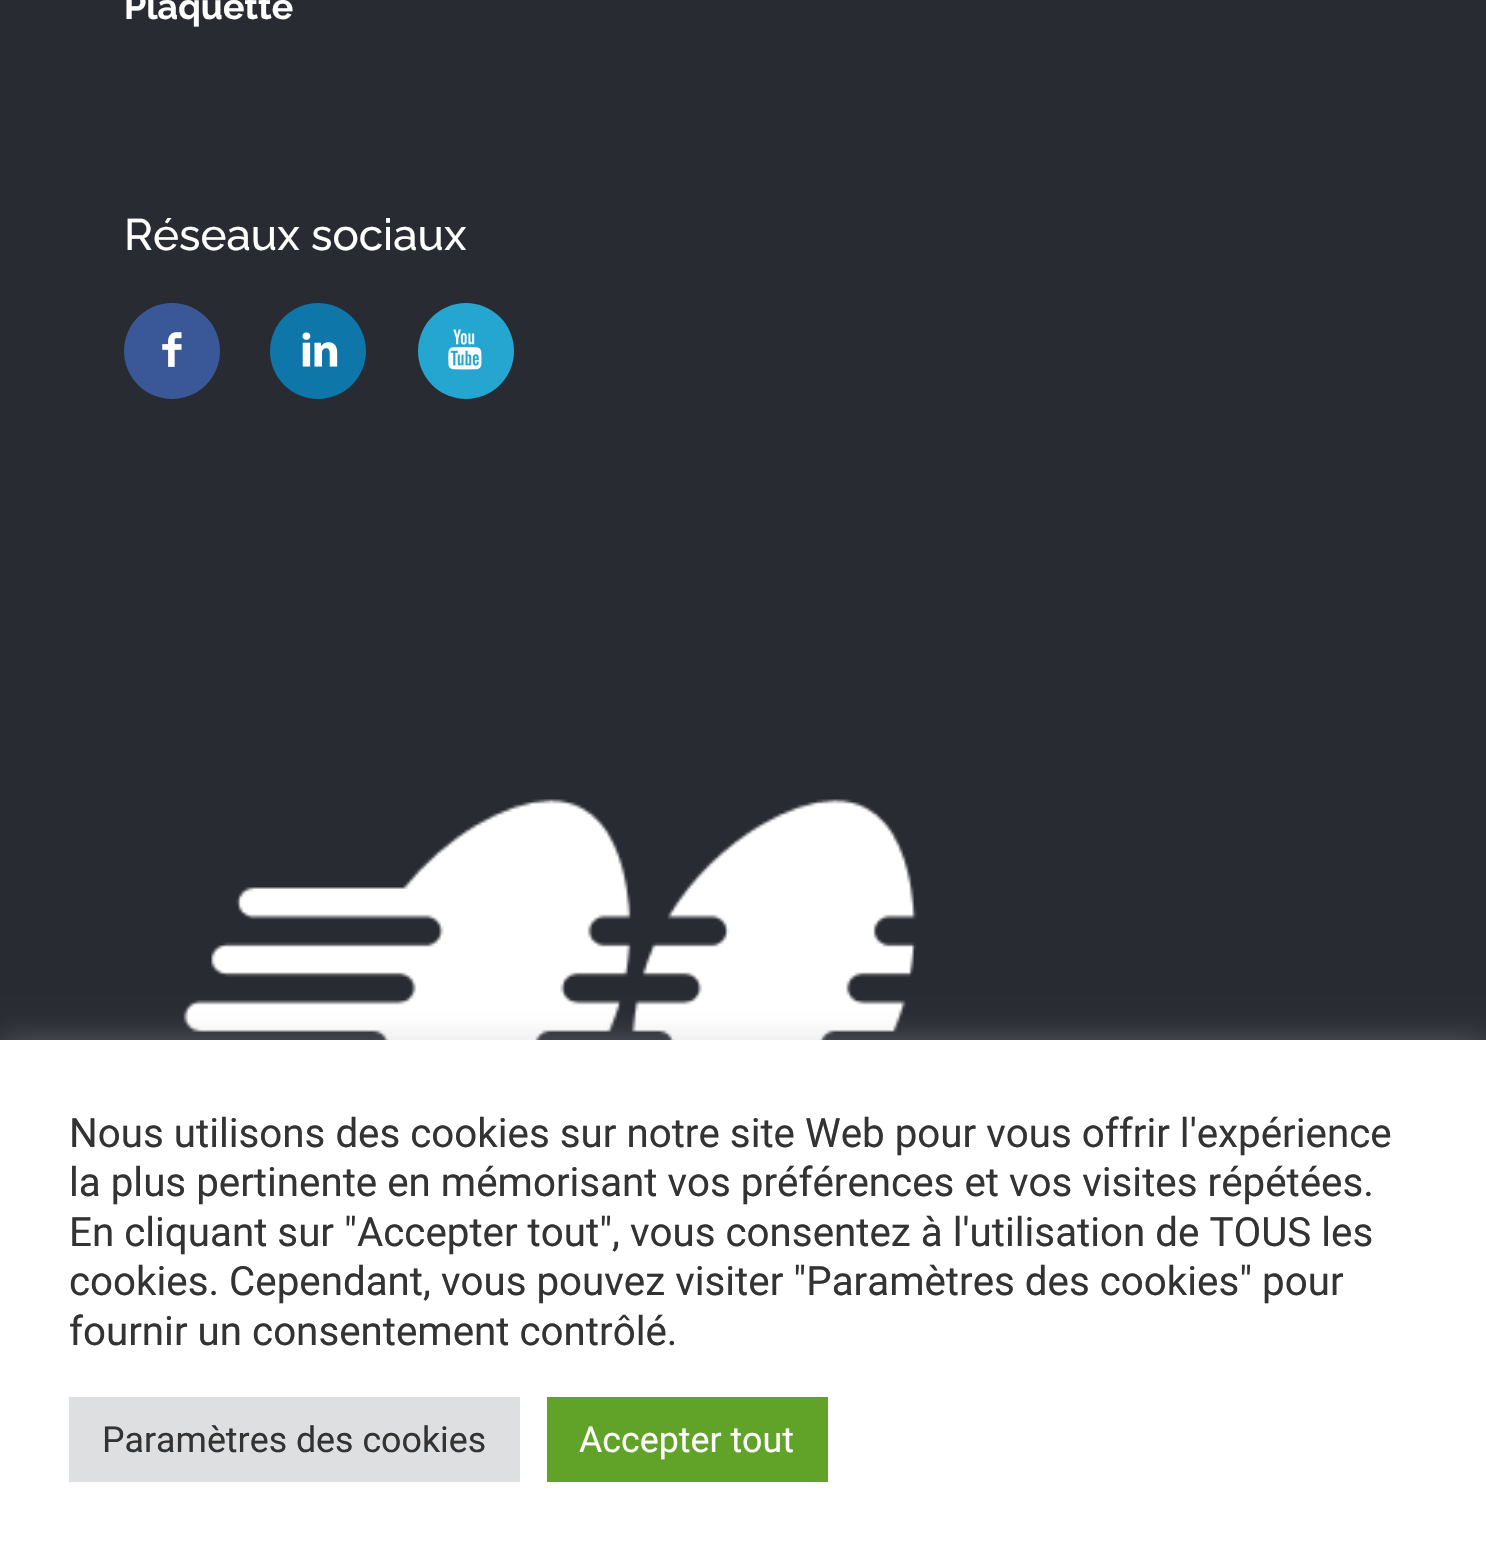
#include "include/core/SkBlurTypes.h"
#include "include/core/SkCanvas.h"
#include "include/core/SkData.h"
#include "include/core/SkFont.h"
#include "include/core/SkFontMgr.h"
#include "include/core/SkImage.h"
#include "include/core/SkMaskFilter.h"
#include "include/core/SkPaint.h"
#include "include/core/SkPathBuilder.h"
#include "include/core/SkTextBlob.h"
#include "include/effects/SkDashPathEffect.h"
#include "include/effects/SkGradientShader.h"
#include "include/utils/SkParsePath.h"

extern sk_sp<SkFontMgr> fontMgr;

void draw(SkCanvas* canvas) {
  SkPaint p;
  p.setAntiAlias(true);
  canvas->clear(SkColorSetRGB(41, 43, 51));
  p.setColor(SkColorSetRGB(58, 88, 151));
  canvas->drawCircle(172, 351, 48, p);
  canvas->drawImageRect(SkImages::DeferredFromEncodedData(SkData::MakeFromFileName("images/1.png")), SkRect::MakeLTRB(162, 332, 182, 367), SkSamplingOptions());
  p.setColor(SkColorSetRGB(14, 118, 168));
  canvas->drawCircle(318, 351, 48, p);
  canvas->drawImageRect(SkImages::DeferredFromEncodedData(SkData::MakeFromFileName("images/2.png")), SkRect::MakeLTRB(302, 332, 338, 367), SkSamplingOptions());
  p.setColor(SkColorSetRGB(37, 166, 209));
  canvas->drawCircle(466, 351, 48, p);
  canvas->drawImageRect(SkImages::DeferredFromEncodedData(SkData::MakeFromFileName("images/3.png")), SkRect::MakeLTRB(448, 329, 482, 370), SkSamplingOptions());
  canvas->drawImageRect(SkImages::DeferredFromEncodedData(SkData::MakeFromFileName("images/4.png")), SkRect::MakeLTRB(183, 799, 917, 1040), SkSamplingOptions());
  p.setColor(SkColorSetARGB(77, 172, 171, 171));
  p.setMaskFilter(SkMaskFilter::MakeBlur(kNormal_SkBlurStyle, 14));
  canvas->drawRect(SkRect::MakeLTRB(0, 1037, 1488, 1562), p);
  p.setMaskFilter(nullptr);
  p.setColor(SK_ColorWHITE);
  canvas->drawRect(SkRect::MakeLTRB(0, 1040, 1486, 1563), p);
  p.setColor(SkColorSetRGB(222, 223, 224));
  canvas->drawRect(SkRect::MakeLTRB(69, 1397, 520, 1482), p);
  p.setColor(SkColorSetRGB(97, 162, 41));
  canvas->drawRect(SkRect::MakeLTRB(547, 1397, 828, 1482), p);
  SkFont font1(fontMgr->matchFamilyStyle("Raleway", SkFontStyle::Bold()), 35.75f);
  font1.setSubpixel(true);
  p.setColor(SK_ColorWHITE);
  canvas->drawString("Plaquette", 124, 19, font1, p);
  SkFont font2(fontMgr->matchFamilyStyle("Raleway", SkFontStyle(500, SkFontStyle::kNormal_Width, SkFontStyle::kUpright_Slant)), 44);
  font2.setSubpixel(true);
  canvas->drawString("Réseaux sociaux", 124, 250, font2, p);
  SkFont font3(fontMgr->matchFamilyStyle("Roboto", SkFontStyle::Normal()), 40.3f);
  font3.setSubpixel(true);
  p.setColor(SkColorSetRGB(51, 51, 51));
  canvas->drawString("Nous utilisons des cookies sur notre site Web pour vous offrir l'expérience", 69, 1147, font3, p);
  canvas->drawString("la plus pertinente en mémorisant vos préférences et vos visites répétées.", 69, 1196, font3, p);
  canvas->drawString("En cliquant sur \"Accepter tout\", vous consentez à l'utilisation de TOUS les", 69, 1246, font3, p);
  canvas->drawString("cookies. Cependant, vous pouvez visiter \"Paramètres des cookies\" pour", 69, 1295, font3, p);
  canvas->drawString("fournir un consentement contrôlé.", 69, 1345, font3, p);
  SkFont font4(fontMgr->matchFamilyStyle("Roboto", SkFontStyle::Normal()), 35.75f);
  font4.setSubpixel(true);
  canvas->drawString("Paramètres des cookies", 102, 1452, font4, p);
  p.setColor(SK_ColorWHITE);
  canvas->drawString("Accepter tout", 579, 1452, font4, p);
}
